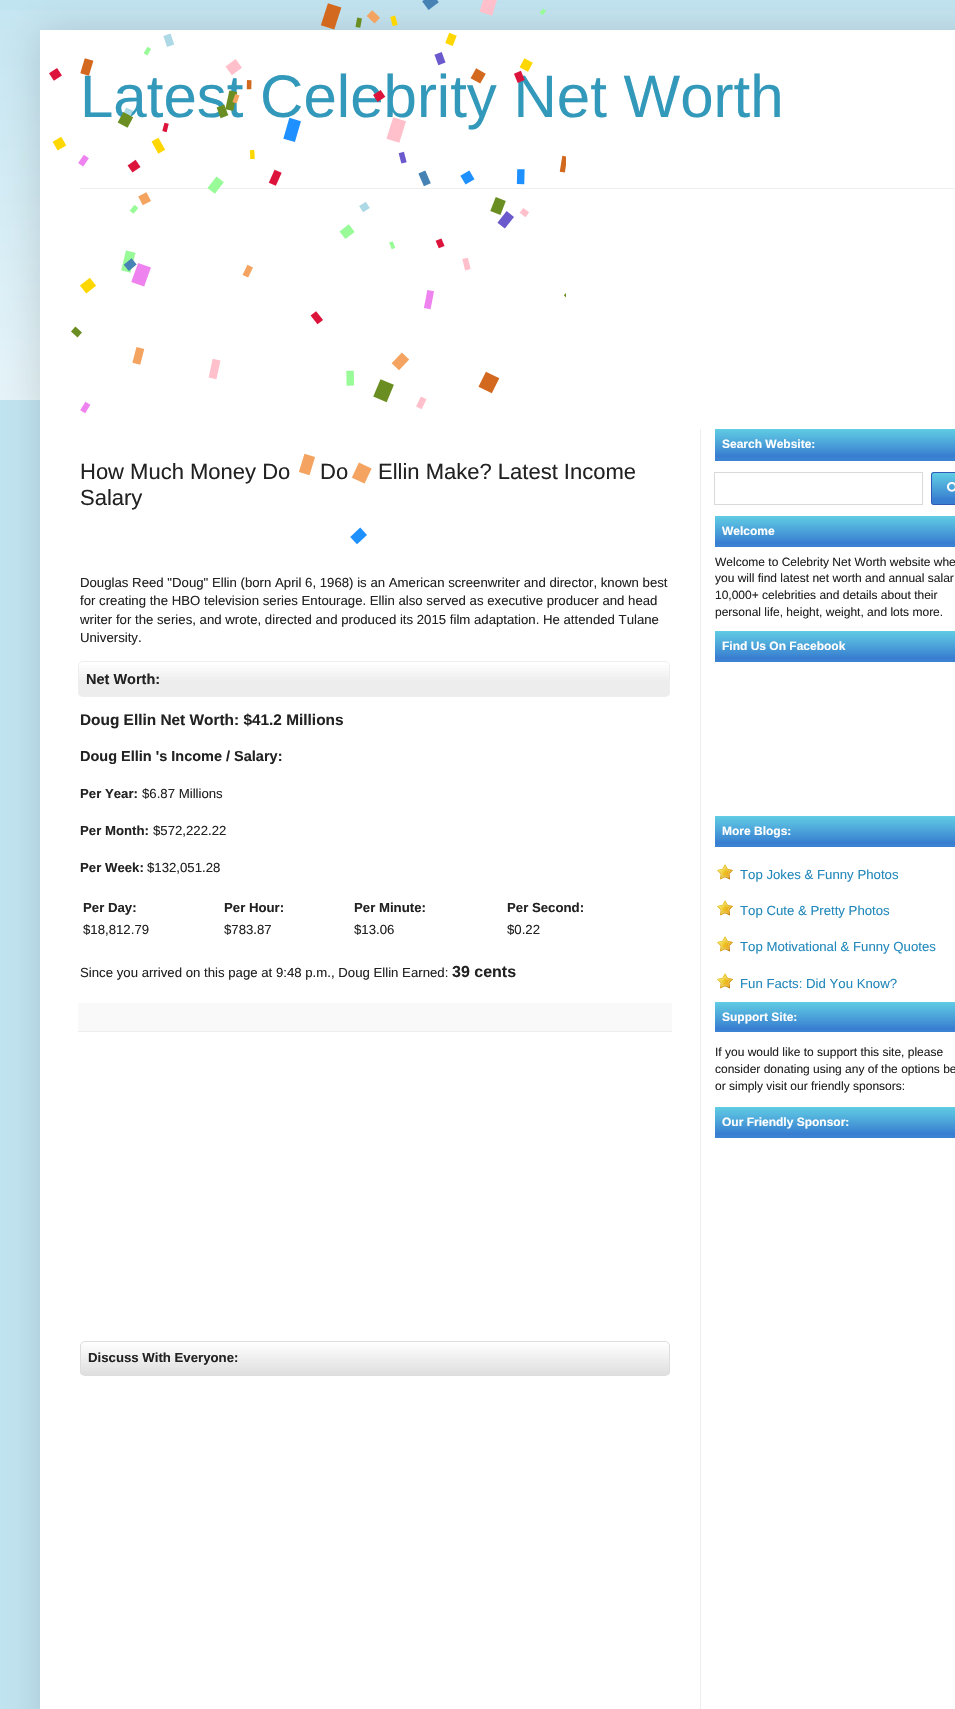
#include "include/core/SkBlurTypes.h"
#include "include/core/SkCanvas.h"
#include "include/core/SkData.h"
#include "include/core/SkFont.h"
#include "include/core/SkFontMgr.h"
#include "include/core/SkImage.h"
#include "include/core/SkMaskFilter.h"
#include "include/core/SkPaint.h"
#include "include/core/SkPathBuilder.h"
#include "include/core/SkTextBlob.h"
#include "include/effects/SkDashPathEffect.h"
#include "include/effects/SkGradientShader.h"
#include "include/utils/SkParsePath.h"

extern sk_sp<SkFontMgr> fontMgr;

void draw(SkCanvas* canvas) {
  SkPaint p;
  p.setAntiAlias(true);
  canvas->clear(SkColorSetRGB(194, 229, 242));
  canvas->drawImageRect(SkImages::DeferredFromEncodedData(SkData::MakeFromFileName("images/2.png")), SkRect::MakeLTRB(0, 10, 955, 400), SkSamplingOptions());
  p.setColor(SkColorSetARGB(38, 0, 0, 0));
  p.setMaskFilter(SkMaskFilter::MakeBlur(kNormal_SkBlurStyle, 20));
  canvas->drawRect(SkRect::MakeLTRB(40, 30, 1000, 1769), p);
  p.setMaskFilter(nullptr);
  p.setColor(SK_ColorWHITE);
  canvas->drawRect(SkRect::MakeLTRB(40, 30, 955, 1709), p);
  p.setColor(SkColorSetRGB(238, 238, 238));
  canvas->drawRect(SkRect::MakeLTRB(80, 188, 955, 189), p);
  canvas->drawRect(SkRect::MakeLTRB(700, 429, 701, 1709), p);
  canvas->drawImageRect(SkImages::DeferredFromEncodedData(SkData::MakeFromFileName("images/3.png")), SkRect::MakeLTRB(78, 662, 670, 696), SkSamplingOptions());
  p.setStyle(SkPaint::kStroke_Style);
  p.setStrokeWidth(1);
  canvas->drawRoundRect(SkRect::MakeLTRB(78.5f, 661.5f, 669.5f, 696.5f), 4.5f, 4.5f, p);
  p.setStyle(SkPaint::kFill_Style);
  p.setColor(SkColorSetRGB(249, 249, 249));
  canvas->drawRect(SkRect::MakeLTRB(78, 1003, 672, 1031), p);
  p.setColor(SkColorSetRGB(238, 238, 238));
  canvas->drawRect(SkRect::MakeLTRB(78, 1031, 672, 1032), p);
  canvas->save();
  canvas->clipPath(SkPathBuilder().moveTo(85, 1341).lineTo(665, 1341).cubicTo(668, 1341, 670, 1343, 670, 1346).lineTo(670, 1371).cubicTo(670, 1374, 668, 1376, 665, 1376).lineTo(85, 1376).cubicTo(82, 1376, 80, 1374, 80, 1371).lineTo(80, 1346).cubicTo(80, 1343, 82, 1341, 85, 1341).close().detach(), true);
  {
    const SkColor colors[] = {SK_ColorWHITE, SkColorSetRGB(222, 222, 222)};
    const float stops[] = {0, 1};
    const SkPoint ends[] = {{375, 1342}, {375, 1375}};
    p.setShader(SkGradientShader::MakeLinear(ends, colors, stops, 2, SkTileMode::kClamp));
    p.setAlpha(255);
  }
  canvas->drawRect(SkRect::MakeLTRB(80, 1342, 670, 1375), p);
  canvas->restore();
  p.setStyle(SkPaint::kStroke_Style);
  p.setShader(nullptr);
  p.setColor(SkColorSetRGB(221, 221, 221));
  canvas->drawRoundRect(SkRect::MakeLTRB(80.5f, 1341.5f, 669.5f, 1375.5f), 4.5f, 4.5f, p);
  p.setStyle(SkPaint::kFill_Style);
  p.setColor(SkColorSetRGB(59, 131, 210));
  canvas->drawRect(SkRect::MakeLTRB(715, 457, 955, 461), p);
  canvas->drawImageRect(SkImages::DeferredFromEncodedData(SkData::MakeFromFileName("images/4.png")), SkRect::MakeLTRB(715, 429, 955, 457), SkSamplingOptions());
  p.setStyle(SkPaint::kStroke_Style);
  p.setColor(SkColorSetRGB(217, 217, 217));
  canvas->drawRect(SkRect::MakeLTRB(714.5f, 472.5f, 922.5f, 504.5f), p);
  p.setStyle(SkPaint::kFill_Style);
  p.setColor(SkColorSetRGB(57, 127, 209));
  canvas->drawRoundRect(SkRect::MakeLTRB(931, 472, 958, 505), 3, 3, p);
  canvas->drawImageRect(SkImages::DeferredFromEncodedData(SkData::MakeFromFileName("images/5.png")), SkRect::MakeLTRB(931, 473, 955, 498), SkSamplingOptions());
  p.setStyle(SkPaint::kStroke_Style);
  p.setColor(SkColorSetRGB(47, 91, 183));
  canvas->drawRoundRect(SkRect::MakeLTRB(931.5f, 472.5f, 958.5f, 504.5f), 2.5f, 2.5f, p);
  canvas->drawImageRect(SkImages::DeferredFromEncodedData(SkData::MakeFromFileName("images/6.png")), SkRect::MakeLTRB(947, 482, 955, 492), SkSamplingOptions());
  p.setStyle(SkPaint::kFill_Style);
  p.setColor(SkColorSetRGB(59, 131, 210));
  canvas->drawRect(SkRect::MakeLTRB(715, 544, 955, 547), p);
  canvas->drawImageRect(SkImages::DeferredFromEncodedData(SkData::MakeFromFileName("images/4.png")), SkRect::MakeLTRB(715, 516, 955, 544), SkSamplingOptions());
  canvas->drawRect(SkRect::MakeLTRB(715, 659, 955, 662), p);
  canvas->drawImageRect(SkImages::DeferredFromEncodedData(SkData::MakeFromFileName("images/4.png")), SkRect::MakeLTRB(715, 631, 955, 659), SkSamplingOptions());
  canvas->drawRect(SkRect::MakeLTRB(715, 844, 955, 847), p);
  canvas->drawImageRect(SkImages::DeferredFromEncodedData(SkData::MakeFromFileName("images/4.png")), SkRect::MakeLTRB(715, 816, 955, 844), SkSamplingOptions());
  canvas->drawImageRect(SkImages::DeferredFromEncodedData(SkData::MakeFromFileName("images/7.png")), SkRect::MakeLTRB(717, 864, 733, 880), SkSamplingOptions());
  canvas->drawImageRect(SkImages::DeferredFromEncodedData(SkData::MakeFromFileName("images/7.png")), SkRect::MakeLTRB(717, 900, 733, 916), SkSamplingOptions());
  canvas->drawImageRect(SkImages::DeferredFromEncodedData(SkData::MakeFromFileName("images/7.png")), SkRect::MakeLTRB(717, 936, 733, 952), SkSamplingOptions());
  canvas->drawImageRect(SkImages::DeferredFromEncodedData(SkData::MakeFromFileName("images/7.png")), SkRect::MakeLTRB(717, 973, 733, 989), SkSamplingOptions());
  canvas->drawRect(SkRect::MakeLTRB(715, 1030, 955, 1032), p);
  canvas->drawImageRect(SkImages::DeferredFromEncodedData(SkData::MakeFromFileName("images/4.png")), SkRect::MakeLTRB(715, 1002, 955, 1030), SkSamplingOptions());
  canvas->drawRect(SkRect::MakeLTRB(715, 1135, 955, 1138), p);
  canvas->drawImageRect(SkImages::DeferredFromEncodedData(SkData::MakeFromFileName("images/4.png")), SkRect::MakeLTRB(715, 1107, 955, 1135), SkSamplingOptions());
  SkFont font1(fontMgr->matchFamilyStyle("Liberation Sans", SkFontStyle::Normal()), 60);
  font1.setSubpixel(true);
  p.setColor(SkColorSetRGB(51, 153, 187));
  canvas->drawString("Latest Celebrity Net Worth", 80, 117, font1, p);
  SkFont font2(fontMgr->matchFamilyStyle("Liberation Sans", SkFontStyle::Normal()), 22);
  font2.setSubpixel(true);
  p.setColor(SkColorSetRGB(34, 34, 34));
  canvas->drawString("How Much Money Do", 80, 479, font2, p);
  canvas->drawString("Do", 320, 479, font2, p);
  canvas->drawString("Ellin Make? Latest Income", 378, 479, font2, p);
  canvas->drawString("Salary", 80, 505, font2, p);
  canvas->drawImageRect(SkImages::DeferredFromEncodedData(SkData::MakeFromFileName("images/1.png")), SkRect::MakeLTRB(49, 0, 566, 545), SkSamplingOptions());
  SkFont font3(fontMgr->matchFamilyStyle("Liberation Sans", SkFontStyle::Normal()), 13.2f);
  font3.setSubpixel(true);
  canvas->drawString("Douglas Reed \"Doug\" Ellin (born April 6, 1968) is an American screenwriter and director, known best", 80, 587, font3, p);
  canvas->drawString("for creating the HBO television series Entourage. Ellin also served as executive producer and head", 80, 605, font3, p);
  canvas->drawString("writer for the series, and wrote, directed and produced its 2015 film adaptation. He attended Tulane", 80, 624, font3, p);
  canvas->drawString("University.", 80, 642, font3, p);
  SkFont font4(fontMgr->matchFamilyStyle("Liberation Sans", SkFontStyle::Bold()), 14.5f);
  font4.setSubpixel(true);
  canvas->drawString("Net Worth:", 86, 684, font4, p);
  SkFont font5(fontMgr->matchFamilyStyle("Liberation Sans", SkFontStyle::Bold()), 15.4f);
  font5.setSubpixel(true);
  canvas->drawString("Doug Ellin Net Worth: $41.2 Millions", 80, 725, font5, p);
  canvas->drawString("Doug Ellin 's Income / Salary:", 80, 761, font4, p);
  SkFont font6(fontMgr->matchFamilyStyle("Liberation Sans", SkFontStyle::Bold()), 13.2f);
  font6.setSubpixel(true);
  canvas->drawString("Per Year:", 80, 798, font6, p);
  canvas->drawString("$6.87 Millions", 142, 798, font3, p);
  canvas->drawString("Per Month:", 80, 835, font6, p);
  canvas->drawString("$572,222.22", 153, 835, font3, p);
  canvas->drawString("Per Week:", 80, 872, font6, p);
  canvas->drawString("$132,051.28", 147, 872, font3, p);
  canvas->drawString("Per Day:", 83, 912, font6, p);
  canvas->drawString("Per Hour:", 224, 912, font6, p);
  canvas->drawString("Per Minute:", 354, 912, font6, p);
  canvas->drawString("Per Second:", 507, 912, font6, p);
  canvas->drawString("$18,812.79", 83, 934, font3, p);
  canvas->drawString("$783.87", 224, 934, font3, p);
  canvas->drawString("$13.06", 354, 934, font3, p);
  canvas->drawString("$0.22", 507, 934, font3, p);
  canvas->drawString("Since you arrived on this page at 9:48 p.m., Doug Ellin Earned:", 80, 977, font3, p);
  SkFont font7(fontMgr->matchFamilyStyle("Liberation Sans", SkFontStyle::Bold()), 16);
  font7.setSubpixel(true);
  canvas->drawString("39 cents", 452, 977, font7, p);
  canvas->drawString("Discuss With Everyone:", 88, 1362, font6, p);
  SkFont font8(fontMgr->matchFamilyStyle("Liberation Sans", SkFontStyle::Bold()), 12);
  font8.setSubpixel(true);
  p.setColor(SK_ColorWHITE);
  canvas->drawString("Search Website:", 722, 448, font8, p);
  canvas->drawString("Welcome", 722, 535, font8, p);
  SkFont font9(fontMgr->matchFamilyStyle("Liberation Sans", SkFontStyle::Normal()), 12);
  font9.setSubpixel(true);
  p.setColor(SkColorSetRGB(34, 34, 34));
  canvas->drawString("Welcome to Celebrity Net Worth website whe", 715, 566, font9, p);
  canvas->drawString("you will find latest net worth and annual salar", 715, 582, font9, p);
  canvas->drawString("10,000+ celebrities and details about their", 715, 599, font9, p);
  canvas->drawString("personal life, height, weight, and lots more.", 715, 616, font9, p);
  p.setColor(SK_ColorWHITE);
  canvas->drawString("Find Us On Facebook", 722, 650, font8, p);
  canvas->drawString("More Blogs:", 722, 835, font8, p);
  p.setColor(SkColorSetRGB(34, 136, 187));
  canvas->drawString("Top Jokes & Funny Photos", 740, 879, font3, p);
  canvas->drawString("Top Cute & Pretty Photos", 740, 915, font3, p);
  canvas->drawString("Top Motivational & Funny Quotes", 740, 951, font3, p);
  canvas->drawString("Fun Facts: Did You Know?", 740, 988, font3, p);
  p.setColor(SK_ColorWHITE);
  canvas->drawString("Support Site:", 722, 1021, font8, p);
  p.setColor(SkColorSetRGB(34, 34, 34));
  canvas->drawString("If you would like to support this site, please", 715, 1056, font9, p);
  canvas->drawString("consider donating using any of the options be", 715, 1073, font9, p);
  canvas->drawString("or simply visit our friendly sponsors:", 715, 1090, font9, p);
  p.setColor(SK_ColorWHITE);
  canvas->drawString("Our Friendly Sponsor:", 722, 1126, font8, p);
}
